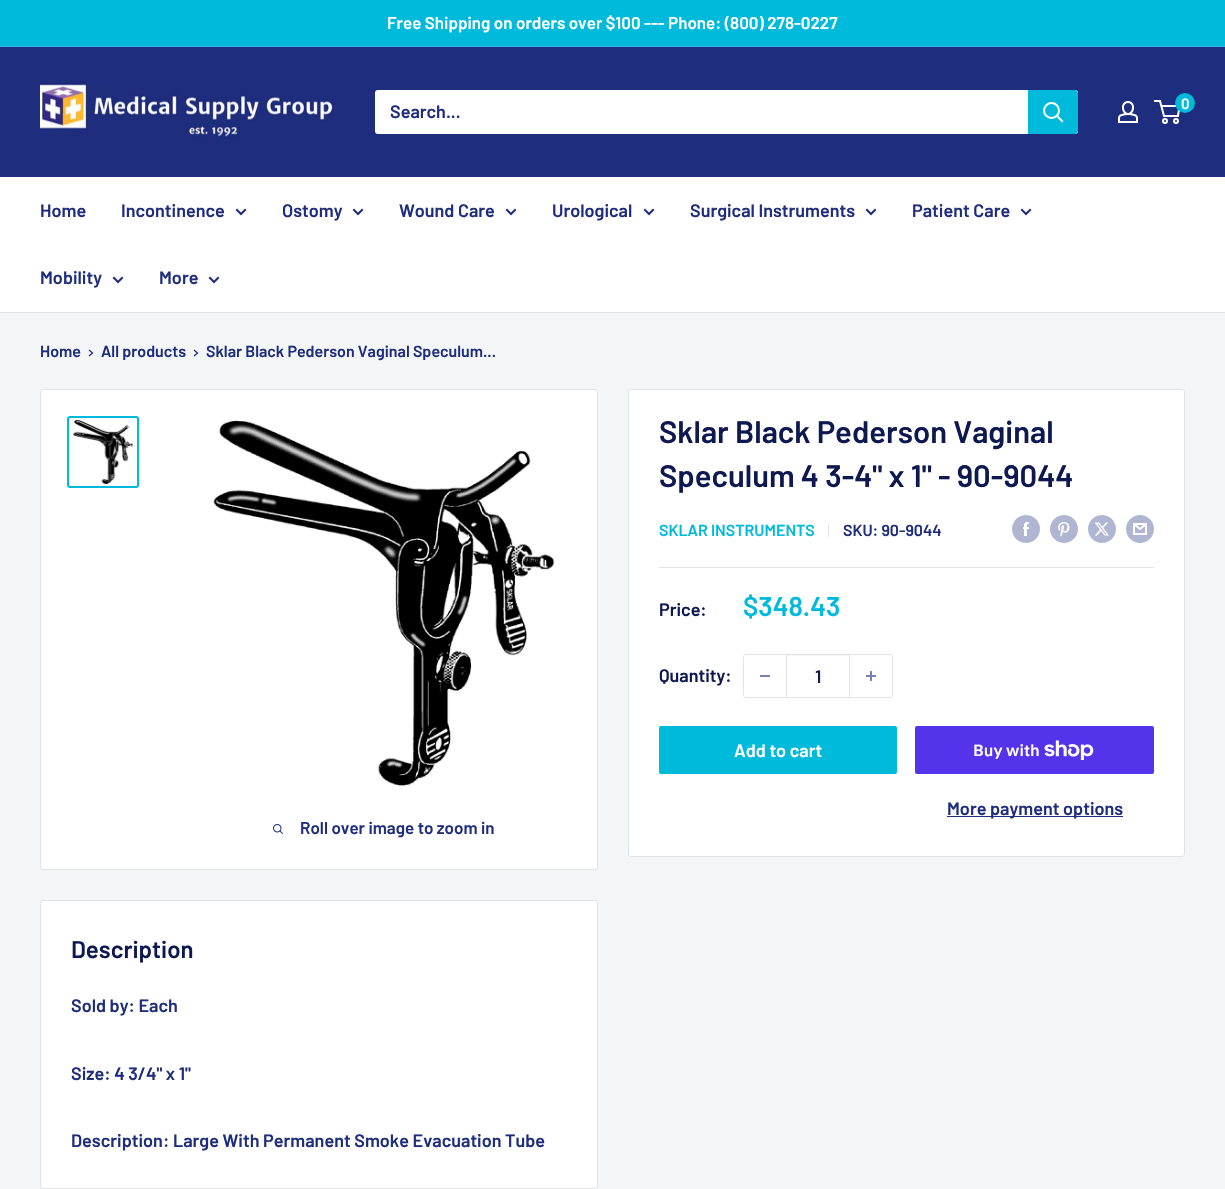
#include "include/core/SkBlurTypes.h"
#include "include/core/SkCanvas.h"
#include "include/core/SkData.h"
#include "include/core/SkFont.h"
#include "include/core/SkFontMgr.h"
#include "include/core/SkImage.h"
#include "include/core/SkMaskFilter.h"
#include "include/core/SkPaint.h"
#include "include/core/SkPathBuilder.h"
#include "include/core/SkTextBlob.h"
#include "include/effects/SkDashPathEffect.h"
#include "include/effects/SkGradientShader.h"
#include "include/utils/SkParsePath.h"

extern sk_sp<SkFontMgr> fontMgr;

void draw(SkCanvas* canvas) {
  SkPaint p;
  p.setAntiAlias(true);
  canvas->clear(SkColorSetRGB(243, 245, 246));
  p.setColor(SkColorSetRGB(0, 186, 219));
  canvas->drawRect(SkRect::MakeLTRB(0, 0, 1225, 46), p);
  p.setColor(SkColorSetRGB(49, 183, 225));
  canvas->drawRect(SkRect::MakeLTRB(0, 46, 1225, 47), p);
  p.setColor(SkColorSetRGB(30, 45, 125));
  canvas->drawRect(SkRect::MakeLTRB(0, 47, 1225, 177), p);
  canvas->drawImageRect(SkImages::DeferredFromEncodedData(SkData::MakeFromFileName("images/1.png")), SkRect::MakeLTRB(40, 83, 334, 139), SkSamplingOptions());
  p.setColor(SK_ColorWHITE);
  canvas->drawRoundRect(SkRect::MakeLTRB(375, 90, 1078, 134), 3, 3, p);
  p.setColor(SkColorSetRGB(0, 186, 219));
  canvas->drawPath(SkPathBuilder().moveTo(1028, 90).lineTo(1075, 90).cubicTo(1076.5f, 90, 1078, 91.5f, 1078, 93).lineTo(1078, 131).cubicTo(1078, 132.5f, 1076.5f, 134, 1075, 134).lineTo(1028, 134).close().detach(), p);
  p.setStyle(SkPaint::kStroke_Style);
  p.setStrokeWidth(2);
  p.setStrokeCap(SkPaint::kSquare_Cap);
  p.setColor(SK_ColorWHITE);
  canvas->drawPath(SkPathBuilder().moveTo(1062, 121).lineTo(1057, 116).detach(), p);
  p.setStrokeCap(SkPaint::kButt_Cap);
  canvas->drawCircle(1051.5f, 110.5f, 7.5f, p);
  canvas->drawImageRect(SkImages::DeferredFromEncodedData(SkData::MakeFromFileName("images/2.png")), SkRect::MakeLTRB(1118, 101, 1138, 123), SkSamplingOptions());
  canvas->drawCircle(1165, 121, 2, p);
  canvas->drawCircle(1176, 121, 2, p);
  canvas->drawPath(SkPathBuilder().moveTo(1161.5f, 106).lineTo(1179.5f, 106).lineTo(1178, 116).lineTo(1164, 116).lineTo(1160, 101).lineTo(1154, 101).detach(), p);
  p.setStyle(SkPaint::kFill_Style);
  p.setColor(SkColorSetRGB(0, 186, 219));
  canvas->drawCircle(1185, 103, 10, p);
  p.setColor(SK_ColorWHITE);
  canvas->drawRect(SkRect::MakeLTRB(0, 177, 1225, 312), p);
  p.setColor(SkColorSetRGB(225, 227, 228));
  canvas->drawRect(SkRect::MakeLTRB(0, 312, 1225, 313), p);
  p.setStyle(SkPaint::kStroke_Style);
  p.setStrokeCap(SkPaint::kSquare_Cap);
  p.setColor(SkColorSetRGB(30, 45, 125));
  canvas->drawPath(SkPathBuilder().moveTo(245, 210).lineTo(241, 214).lineTo(237, 210).detach(), p);
  canvas->drawPath(SkPathBuilder().moveTo(362, 210).lineTo(358, 214).lineTo(354, 210).detach(), p);
  canvas->drawPath(SkPathBuilder().moveTo(515, 210).lineTo(511, 214).lineTo(507, 210).detach(), p);
  canvas->drawPath(SkPathBuilder().moveTo(653, 210).lineTo(649, 214).lineTo(645, 210).detach(), p);
  canvas->drawPath(SkPathBuilder().moveTo(875, 210).lineTo(871, 214).lineTo(867, 210).detach(), p);
  canvas->drawPath(SkPathBuilder().moveTo(1030, 210).lineTo(1026, 214).lineTo(1022, 210).detach(), p);
  canvas->drawPath(SkPathBuilder().moveTo(122, 278).lineTo(118, 282).lineTo(114, 278).detach(), p);
  canvas->drawPath(SkPathBuilder().moveTo(218, 278).lineTo(214, 282).lineTo(210, 278).detach(), p);
  p.setStrokeWidth(1.3f);
  canvas->drawPath(SkPathBuilder().moveTo(89.5f, 350.5f).lineTo(92.5f, 353).lineTo(89.5f, 355.5f).detach(), p);
  canvas->drawPath(SkPathBuilder().moveTo(194.5f, 350.5f).lineTo(197.5f, 353).lineTo(194.5f, 355.5f).detach(), p);
  p.setStyle(SkPaint::kFill_Style);
  p.setColor(SK_ColorWHITE);
  canvas->drawRoundRect(SkRect::MakeLTRB(628.5f, 389.5f, 1184.5f, 856.5f), 2.5f, 2.5f, p);
  p.setStyle(SkPaint::kStroke_Style);
  p.setStrokeWidth(1);
  p.setStrokeCap(SkPaint::kButt_Cap);
  p.setColor(SkColorSetRGB(225, 227, 228));
  canvas->drawRoundRect(SkRect::MakeLTRB(628.5f, 389.5f, 1184.5f, 856.5f), 2.5f, 2.5f, p);
  p.setStyle(SkPaint::kFill_Style);
  canvas->drawRect(SkRect::MakeLTRB(828, 524, 829, 537), p);
  canvas->drawImageRect(SkImages::DeferredFromEncodedData(SkData::MakeFromFileName("images/3.png")), SkRect::MakeLTRB(1012, 515, 1040, 543), SkSamplingOptions());
  canvas->drawImageRect(SkImages::DeferredFromEncodedData(SkData::MakeFromFileName("images/4.png")), SkRect::MakeLTRB(1050, 515, 1078, 543), SkSamplingOptions());
  canvas->drawImageRect(SkImages::DeferredFromEncodedData(SkData::MakeFromFileName("images/5.png")), SkRect::MakeLTRB(1088, 515, 1116, 543), SkSamplingOptions());
  canvas->drawImageRect(SkImages::DeferredFromEncodedData(SkData::MakeFromFileName("images/6.png")), SkRect::MakeLTRB(1126, 515, 1154, 543), SkSamplingOptions());
  canvas->drawRect(SkRect::MakeLTRB(659, 567, 1154, 568), p);
  p.setStyle(SkPaint::kStroke_Style);
  canvas->drawRoundRect(SkRect::MakeLTRB(743.5f, 654.5f, 892.5f, 697.5f), 2.5f, 2.5f, p);
  p.setStyle(SkPaint::kFill_Style);
  p.setColor(SkColorSetRGB(120, 129, 177));
  canvas->drawRect(SkRect::MakeLTRB(760, 675, 770, 677), p);
  p.setColor(SkColorSetRGB(243, 244, 244));
  canvas->drawRect(SkRect::MakeLTRB(787, 655, 849, 656), p);
  p.setColor(SkColorSetRGB(225, 227, 228));
  canvas->drawRect(SkRect::MakeLTRB(849, 655, 850, 697), p);
  canvas->drawRect(SkRect::MakeLTRB(786, 655, 787, 697), p);
  canvas->drawImageRect(SkImages::DeferredFromEncodedData(SkData::MakeFromFileName("images/7.png")), SkRect::MakeLTRB(866, 671, 876, 681), SkSamplingOptions());
  p.setColor(SkColorSetRGB(0, 186, 219));
  canvas->drawRoundRect(SkRect::MakeLTRB(659, 726, 897, 774), 2, 2, p);
  p.setColor(SkColorSetRGB(84, 51, 235));
  canvas->drawRoundRect(SkRect::MakeLTRB(915, 726, 1154, 774), 2, 2, p);
  canvas->drawImageRect(SkImages::DeferredFromEncodedData(SkData::MakeFromFileName("images/8.png")), SkRect::MakeLTRB(1044, 740, 1094, 760), SkSamplingOptions());
  p.setColor(SkColorSetRGB(30, 45, 125));
  canvas->drawRect(SkRect::MakeLTRB(947, 816, 1123, 817), p);
  p.setColor(SK_ColorWHITE);
  canvas->drawRoundRect(SkRect::MakeLTRB(40.5f, 389.5f, 597.5f, 869.5f), 2.5f, 2.5f, p);
  p.setStyle(SkPaint::kStroke_Style);
  p.setColor(SkColorSetRGB(225, 227, 228));
  canvas->drawRoundRect(SkRect::MakeLTRB(40.5f, 389.5f, 597.5f, 869.5f), 2.5f, 2.5f, p);
  p.setStrokeWidth(2);
  p.setColor(SkColorSetRGB(0, 186, 219));
  canvas->drawRoundRect(SkRect::MakeLTRB(68, 417, 138, 487), 2, 2, p);
  canvas->drawImageRect(SkImages::DeferredFromEncodedData(SkData::MakeFromFileName("images/9.png")), SkRect::MakeLTRB(73, 420, 134, 484), SkSamplingOptions());
  canvas->drawImageRect(SkImages::DeferredFromEncodedData(SkData::MakeFromFileName("images/10.png")), SkRect::MakeLTRB(213, 420, 555, 786), SkSamplingOptions());
  canvas->drawImageRect(SkImages::DeferredFromEncodedData(SkData::MakeFromFileName("images/11.png")), SkRect::MakeLTRB(273, 824, 283, 834), SkSamplingOptions());
  p.setStyle(SkPaint::kFill_Style);
  p.setColor(SK_ColorWHITE);
  canvas->drawRoundRect(SkRect::MakeLTRB(40.5f, 900.5f, 597.5f, 1188.5f), 2.5f, 2.5f, p);
  p.setStyle(SkPaint::kStroke_Style);
  p.setStrokeWidth(1);
  p.setColor(SkColorSetRGB(225, 227, 228));
  canvas->drawRoundRect(SkRect::MakeLTRB(40.5f, 900.5f, 597.5f, 1188.5f), 2.5f, 2.5f, p);
  SkFont font1(fontMgr->matchFamilyStyle("Barlow", SkFontStyle(600, SkFontStyle::kNormal_Width, SkFontStyle::kUpright_Slant)), 17);
  font1.setSubpixel(true);
  p.setStyle(SkPaint::kFill_Style);
  p.setColor(SK_ColorWHITE);
  canvas->drawString("Free Shipping on orders over $100 --- Phone: (800) 278-0227", 387, 29, font1, p);
  SkFont font2(fontMgr->matchFamilyStyle("Barlow", SkFontStyle(600, SkFontStyle::kNormal_Width, SkFontStyle::kUpright_Slant)), 18);
  font2.setSubpixel(true);
  p.setColor(SkColorSetRGB(30, 45, 125));
  canvas->drawString("Search...", 390, 118, font2, p);
  SkFont font3(fontMgr->matchFamilyStyle("Barlow", SkFontStyle(600, SkFontStyle::kNormal_Width, SkFontStyle::kUpright_Slant)), 15);
  font3.setSubpixel(true);
  p.setColor(SK_ColorWHITE);
  canvas->drawString("0", 1181, 109, font3, p);
  p.setColor(SkColorSetRGB(30, 45, 125));
  canvas->drawString("Home", 40, 217, font2, p);
  canvas->drawString("Incontinence", 121, 217, font2, p);
  canvas->drawString("Ostomy", 282, 217, font2, p);
  canvas->drawString("Wound Care", 399, 217, font2, p);
  canvas->drawString("Urological", 552, 217, font2, p);
  canvas->drawString("Surgical Instruments", 690, 217, font2, p);
  canvas->drawString("Patient Care", 912, 217, font2, p);
  canvas->drawString("Mobility", 40, 284, font2, p);
  canvas->drawString("More", 159, 284, font2, p);
  SkFont font4(fontMgr->matchFamilyStyle("Barlow", SkFontStyle(600, SkFontStyle::kNormal_Width, SkFontStyle::kUpright_Slant)), 16);
  font4.setSubpixel(true);
  canvas->drawString("Home", 40, 357, font4, p);
  canvas->drawString("All products", 101, 357, font4, p);
  canvas->drawString("Sklar Black Pederson Vaginal Speculum...", 206, 357, font4, p);
  SkFont font5(fontMgr->matchFamilyStyle("Barlow", SkFontStyle(600, SkFontStyle::kNormal_Width, SkFontStyle::kUpright_Slant)), 31);
  font5.setSubpixel(true);
  p.setColor(SkColorSetRGB(14, 24, 81));
  canvas->drawString("Sklar Black Pederson Vaginal", 659, 443, font5, p);
  canvas->drawString("Speculum 4 3-4\" x 1\" - 90-9044", 659, 487, font5, p);
  p.setColor(SkColorSetRGB(0, 186, 219));
  canvas->drawString("SKLAR INSTRUMENTS", 659, 536, font4, p);
  p.setColor(SkColorSetRGB(30, 45, 125));
  canvas->drawString("SKU: 90-9044", 843, 536, font4, p);
  p.setColor(SkColorSetRGB(14, 24, 81));
  canvas->drawString("Price:", 659, 616, font2, p);
  SkFont font6(fontMgr->matchFamilyStyle("Barlow", SkFontStyle(600, SkFontStyle::kNormal_Width, SkFontStyle::kUpright_Slant)), 27);
  font6.setSubpixel(true);
  p.setColor(SkColorSetRGB(0, 186, 219));
  canvas->drawString("$348.43", 743, 616, font6, p);
  p.setColor(SkColorSetRGB(14, 24, 81));
  canvas->drawString("Quantity:", 659, 682, font2, p);
  canvas->drawString("1", 815, 683, font2, p);
  p.setColor(SK_ColorWHITE);
  canvas->drawString("Add to cart", 734, 757, font2, p);
  SkFont font7(fontMgr->matchFamilyStyle("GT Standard", SkFontStyle(600, SkFontStyle::kNormal_Width, SkFontStyle::kUpright_Slant)), 16);
  font7.setSubpixel(true);
  canvas->drawString("Buy with", 973, 756, font7, p);
  p.setColor(SkColorSetRGB(30, 45, 125));
  canvas->drawString("More payment options", 947, 815, font2, p);
  canvas->drawString("Roll over image to zoom in", 300, 834, font1, p);
  SkFont font8(fontMgr->matchFamilyStyle("Barlow", SkFontStyle(600, SkFontStyle::kNormal_Width, SkFontStyle::kUpright_Slant)), 24);
  font8.setSubpixel(true);
  p.setColor(SkColorSetRGB(14, 24, 81));
  canvas->drawString("Description", 71, 958, font8, p);
  p.setColor(SkColorSetRGB(30, 45, 125));
  canvas->drawString("Sold by: Each", 71, 1012, font2, p);
  canvas->drawString("Size: 4 3/4\" x 1\"", 71, 1080, font2, p);
  canvas->drawString("Description: Large With Permanent Smoke Evacuation Tube", 71, 1147, font2, p);
}
